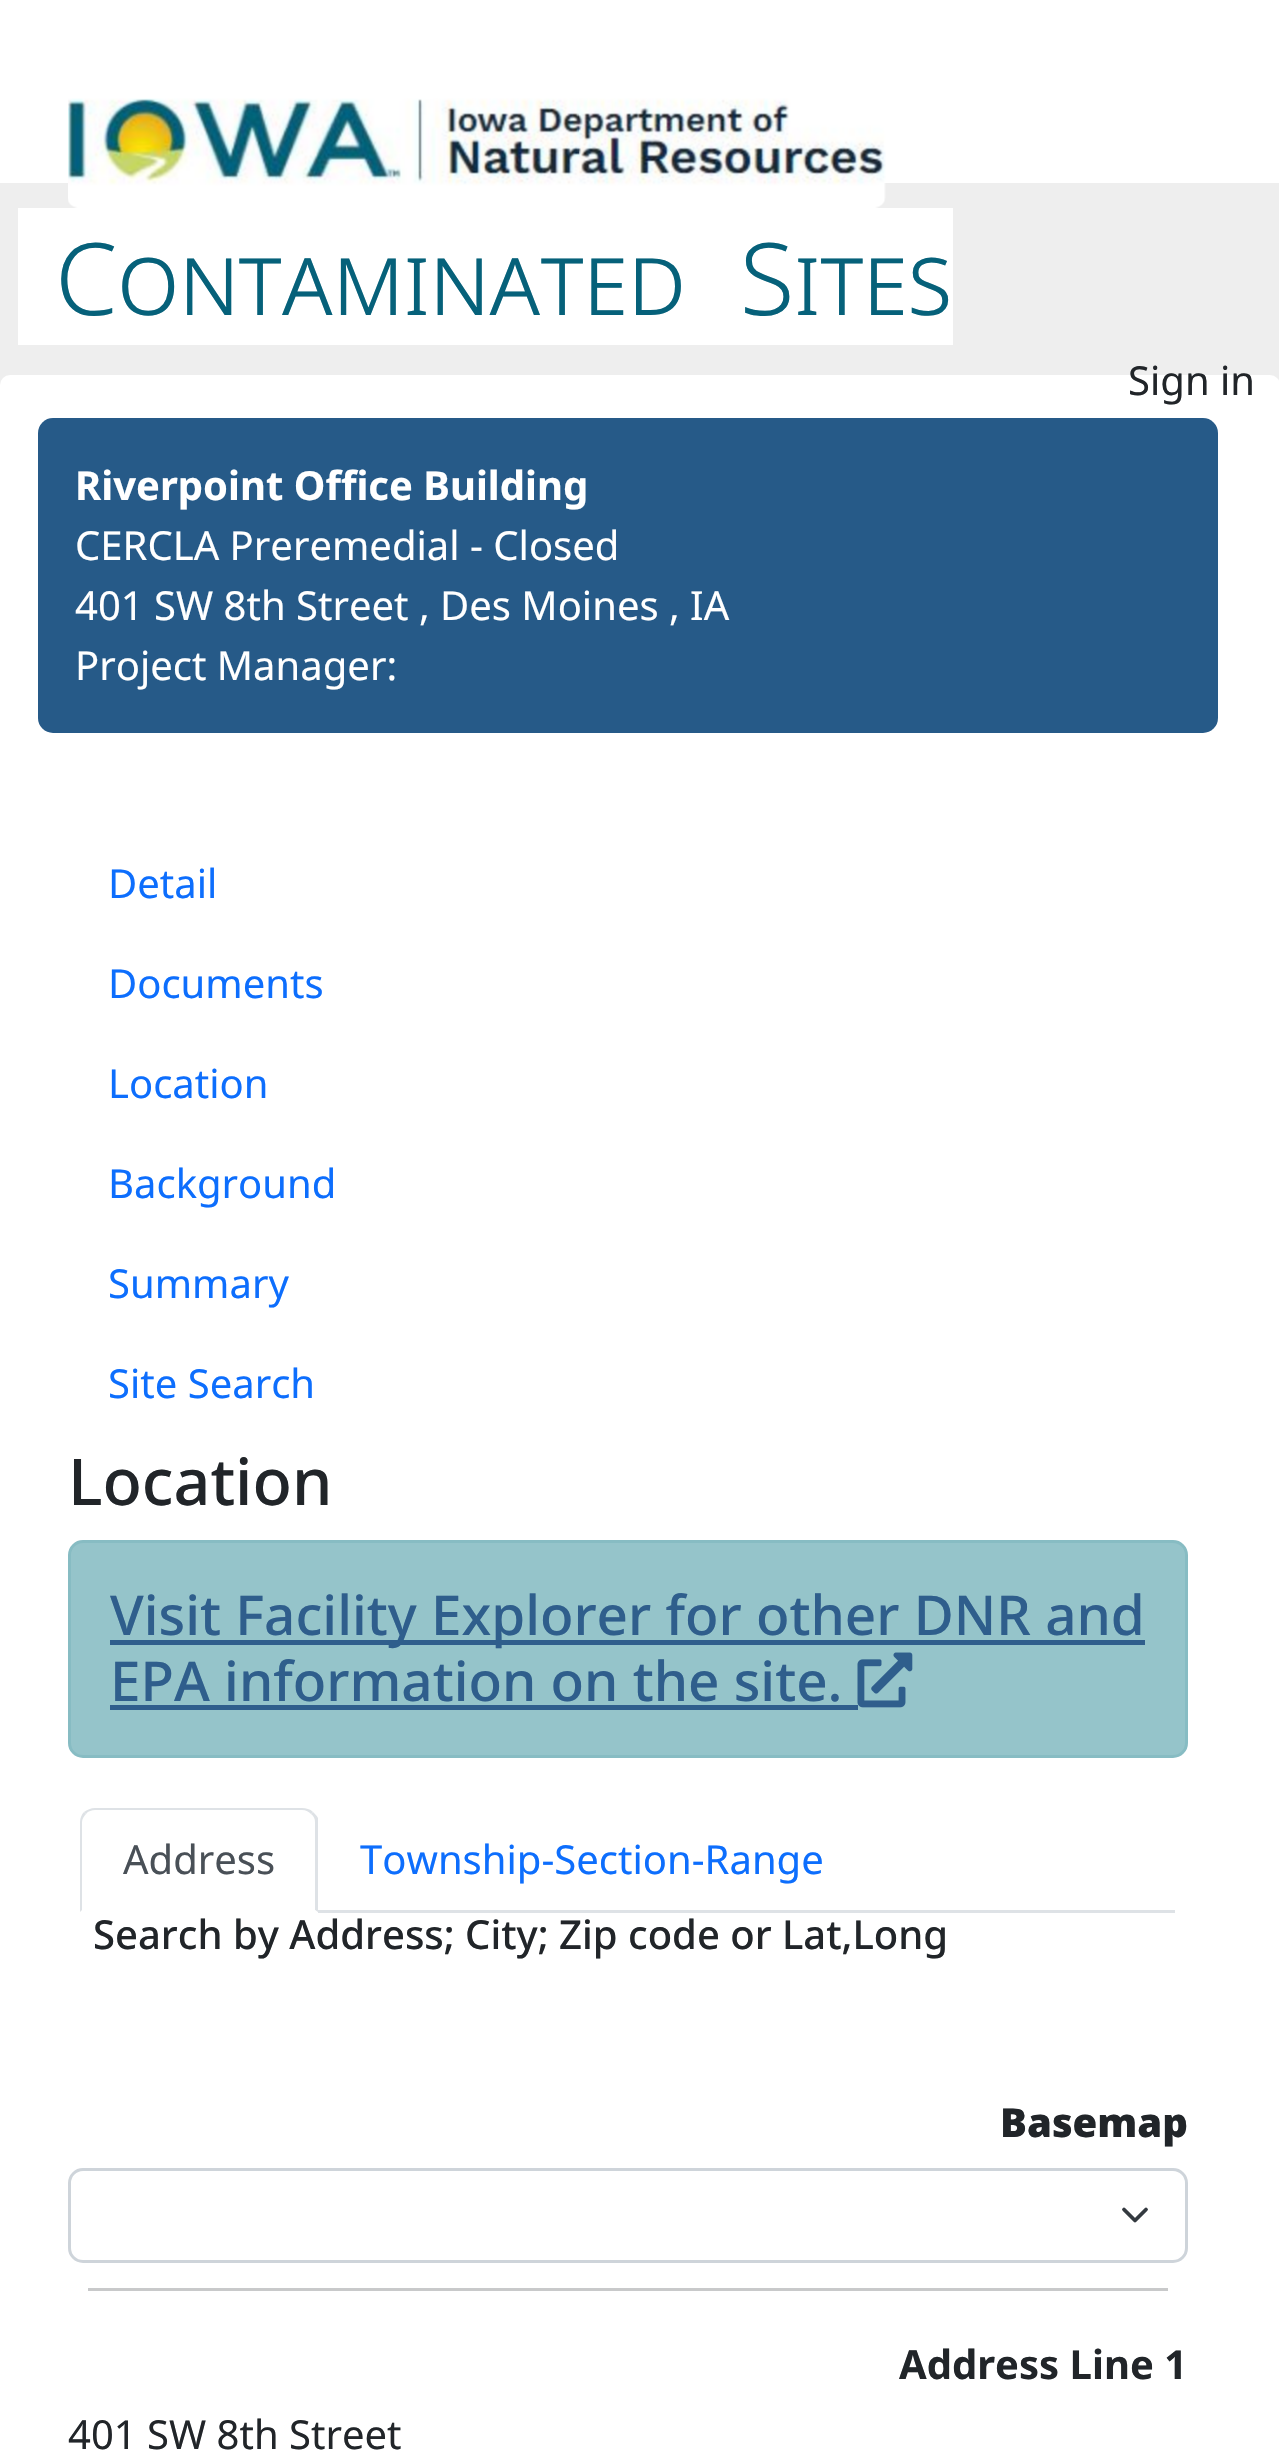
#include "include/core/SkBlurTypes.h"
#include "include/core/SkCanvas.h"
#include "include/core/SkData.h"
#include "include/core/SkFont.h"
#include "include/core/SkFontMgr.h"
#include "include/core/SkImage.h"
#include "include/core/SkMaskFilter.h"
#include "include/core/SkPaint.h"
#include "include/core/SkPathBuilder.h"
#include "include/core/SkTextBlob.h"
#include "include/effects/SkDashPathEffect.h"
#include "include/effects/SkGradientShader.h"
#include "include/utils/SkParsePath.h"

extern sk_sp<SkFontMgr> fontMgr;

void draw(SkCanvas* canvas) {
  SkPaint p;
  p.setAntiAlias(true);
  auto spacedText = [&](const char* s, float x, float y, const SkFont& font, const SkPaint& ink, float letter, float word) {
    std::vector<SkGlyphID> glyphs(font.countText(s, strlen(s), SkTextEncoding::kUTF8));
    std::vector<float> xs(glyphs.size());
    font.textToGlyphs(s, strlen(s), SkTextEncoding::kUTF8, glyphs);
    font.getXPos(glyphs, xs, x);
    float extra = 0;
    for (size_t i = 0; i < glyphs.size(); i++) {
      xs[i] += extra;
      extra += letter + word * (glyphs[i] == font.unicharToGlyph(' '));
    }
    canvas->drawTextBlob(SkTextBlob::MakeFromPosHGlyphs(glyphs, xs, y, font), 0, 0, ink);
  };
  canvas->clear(SkColorSetRGB(238, 238, 238));
  p.setColor(SK_ColorWHITE);
  canvas->drawRect(SkRect::MakeLTRB(0, 0, 1279, 183), p);
  canvas->drawImageRect(SkImages::DeferredFromEncodedData(SkData::MakeFromFileName("images/1.png")), SkRect::MakeLTRB(68, 98, 886, 208), SkSamplingOptions());
  canvas->drawRect(SkRect::MakeLTRB(18, 208, 953, 345), p);
  canvas->drawRoundRect(SkRect::MakeLTRB(0, 375, 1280, 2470), 10, 10, p);
  p.setColor(SkColorSetRGB(38, 90, 136));
  canvas->drawRoundRect(SkRect::MakeLTRB(38, 418, 1218, 733), 15, 15, p);
  p.setColor(SkColorSetRGB(149, 196, 202));
  canvas->drawRoundRect(SkRect::MakeLTRB(69.5f, 1541.5f, 1186.5f, 1756.5f), 13.5f, 13.5f, p);
  p.setStyle(SkPaint::kStroke_Style);
  p.setStrokeWidth(3);
  p.setColor(SkColorSetRGB(135, 188, 195));
  canvas->drawRoundRect(SkRect::MakeLTRB(69.5f, 1541.5f, 1186.5f, 1756.5f), 13.5f, 13.5f, p);
  p.setStyle(SkPaint::kFill_Style);
  p.setColor(SkColorSetRGB(47, 94, 140));
  canvas->drawRect(SkRect::MakeLTRB(110, 1640, 1145, 1645), p);
  canvas->drawRect(SkRect::MakeLTRB(110, 1705, 858, 1710), p);
  canvas->drawImageRect(SkImages::DeferredFromEncodedData(SkData::MakeFromFileName("images/2.png")), SkRect::MakeLTRB(857, 1652, 913, 1708), SkSamplingOptions());
  p.setColor(SkColorSetRGB(222, 226, 230));
  canvas->drawRect(SkRect::MakeLTRB(318, 1910, 1175, 1913), p);
  canvas->drawPath(SkPathBuilder().moveTo(95, 1808).cubicTo(91, 1808, 87, 1810, 84, 1812).lineTo(86, 1814).cubicTo(88, 1811, 92, 1810, 95, 1810).lineTo(302, 1810).cubicTo(306, 1810, 309, 1812, 311, 1814).lineTo(313, 1812).cubicTo(310, 1809, 306, 1808, 302, 1808).close().detach(), p);
  canvas->drawPath(SkPathBuilder().moveTo(313, 1812).cubicTo(315, 1814, 317, 1816, 318, 1818).lineTo(318, 1912).lineTo(315, 1910).lineTo(315, 1822).cubicTo(315, 1819, 314, 1816, 311, 1814).close().detach(), p);
  p.setColor(SK_ColorWHITE);
  canvas->drawPath(SkPathBuilder().moveTo(317, 1912).lineTo(80, 1912).lineTo(82, 1910).lineTo(315, 1910).close().detach(), p);
  p.setColor(SkColorSetRGB(222, 226, 230));
  canvas->drawPath(SkPathBuilder().moveTo(80, 1822).lineTo(80, 1912).lineTo(82, 1910).lineTo(82, 1822).cubicTo(82, 1819, 84, 1816, 86, 1814).lineTo(84, 1812).cubicTo(82, 1814, 80, 1818, 80, 1822).close().detach(), p);
  p.setStyle(SkPaint::kStroke_Style);
  p.setStrokeWidth(3.8f);
  p.setStrokeCap(SkPaint::kRound_Cap);
  p.setStrokeJoin(SkPaint::kRound_Join);
  p.setColor(SkColorSetRGB(52, 58, 64));
  canvas->drawPath(SkPathBuilder().moveTo(1124, 2209.5f).lineTo(1135, 2220.5f).lineTo(1146, 2209.5f).detach(), p);
  p.setStrokeWidth(3);
  p.setStrokeCap(SkPaint::kButt_Cap);
  p.setStrokeJoin(SkPaint::kMiter_Join);
  p.setColor(SkColorSetRGB(206, 212, 218));
  canvas->drawRoundRect(SkRect::MakeLTRB(69.5f, 2169.5f, 1186.5f, 2261.5f), 13.5f, 13.5f, p);
  p.setStyle(SkPaint::kFill_Style);
  p.setColor(SkColorSetRGB(200, 201, 202));
  canvas->drawRect(SkRect::MakeLTRB(88, 2288, 1168, 2291), p);
  SkFont font1(fontMgr->matchFamilyStyle("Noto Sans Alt", SkFontStyle(300, SkFontStyle::kNormal_Width, SkFontStyle::kUpright_Slant)), 100);
  font1.setSubpixel(true);
  p.setColor(SkColorSetRGB(6, 97, 122));
  spacedText("Contaminated Sites", 55, 315, font1, p, 0, 28);
  SkFont font2(fontMgr->matchFamilyStyle("Noto Sans", SkFontStyle::Normal()), 40);
  font2.setSubpixel(true);
  p.setColor(SkColorSetRGB(33, 37, 41));
  canvas->drawString("Sign in", 1128, 395, font2, p);
  SkFont font3(fontMgr->matchFamilyStyle("Noto Sans", SkFontStyle::Bold()), 40);
  font3.setSubpixel(true);
  p.setColor(SK_ColorWHITE);
  canvas->drawString("Riverpoint Office Building", 75, 500, font3, p);
  canvas->drawString("CERCLA Preremedial - Closed", 75, 560, font2, p);
  canvas->drawString("401 SW 8th Street , Des Moines , IA", 75, 620, font2, p);
  canvas->drawString("Project Manager:", 75, 680, font2, p);
  p.setColor(SkColorSetRGB(13, 110, 253));
  canvas->drawString("Detail", 108, 898, font2, p);
  canvas->drawString("Documents", 108, 998, font2, p);
  canvas->drawString("Location", 108, 1098, font2, p);
  canvas->drawString("Background", 108, 1198, font2, p);
  canvas->drawString("Summary", 108, 1298, font2, p);
  canvas->drawString("Site Search", 108, 1398, font2, p);
  SkFont font4(fontMgr->matchFamilyStyle("Noto Sans", SkFontStyle(500, SkFontStyle::kNormal_Width, SkFontStyle::kUpright_Slant)), 64.5f);
  font4.setSubpixel(true);
  p.setColor(SkColorSetRGB(33, 37, 41));
  canvas->drawString("Location", 68, 1505, font4, p);
  SkFont font5(fontMgr->matchFamilyStyle("Noto Sans", SkFontStyle(500, SkFontStyle::kNormal_Width, SkFontStyle::kUpright_Slant)), 54.8f);
  font5.setSubpixel(true);
  p.setColor(SkColorSetRGB(47, 94, 140));
  canvas->drawString("Visit Facility Explorer for other DNR and", 110, 1635, font5, p);
  canvas->drawString("EPA information on the site.", 110, 1701, font5, p);
  p.setColor(SkColorSetRGB(73, 80, 87));
  canvas->drawString("Address", 123, 1874, font2, p);
  p.setColor(SkColorSetRGB(13, 110, 253));
  canvas->drawString("Township-Section-Range", 360, 1874, font2, p);
  SkFont font6(fontMgr->matchFamilyStyle("Noto Sans", SkFontStyle(500, SkFontStyle::kNormal_Width, SkFontStyle::kUpright_Slant)), 40);
  font6.setSubpixel(true);
  p.setColor(SkColorSetRGB(33, 37, 41));
  canvas->drawString("Search by Address; City; Zip code or Lat,Long", 93, 1949, font6, p);
  SkFont font7(fontMgr->matchFamilyStyle("Noto Sans", SkFontStyle(900, SkFontStyle::kNormal_Width, SkFontStyle::kUpright_Slant)), 40);
  font7.setSubpixel(true);
  canvas->drawString("Basemap", 1000, 2137, font7, p);
  canvas->drawString("Address Line 1", 899, 2379, font3, p);
  canvas->drawString("401 SW 8th Street", 68, 2449, font2, p);
}
